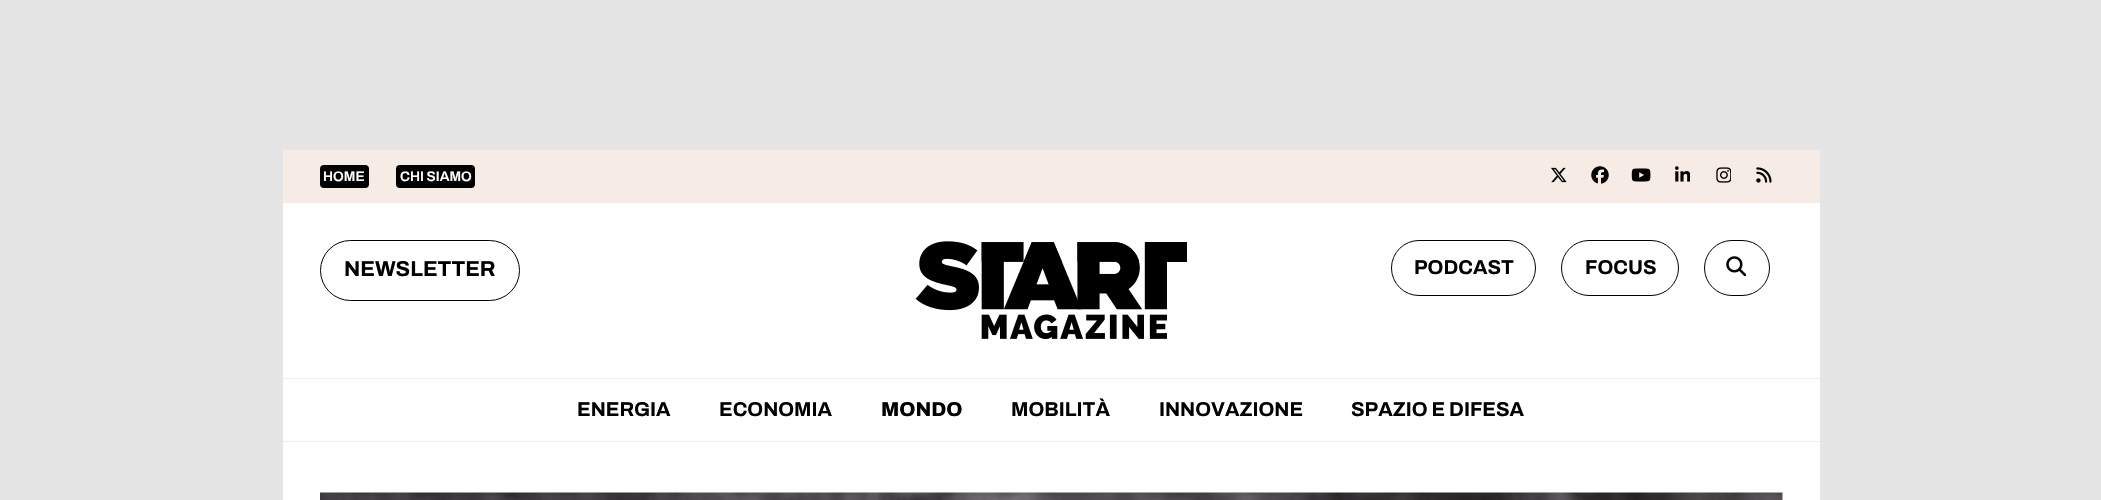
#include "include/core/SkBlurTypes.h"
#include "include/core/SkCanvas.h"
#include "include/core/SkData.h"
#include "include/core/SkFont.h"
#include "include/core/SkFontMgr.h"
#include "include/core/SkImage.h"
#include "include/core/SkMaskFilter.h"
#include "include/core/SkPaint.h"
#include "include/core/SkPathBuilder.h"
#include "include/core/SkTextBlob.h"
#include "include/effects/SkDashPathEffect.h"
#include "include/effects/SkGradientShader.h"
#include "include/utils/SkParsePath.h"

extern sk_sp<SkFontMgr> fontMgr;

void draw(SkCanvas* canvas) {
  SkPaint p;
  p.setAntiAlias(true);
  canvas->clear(SkColorSetRGB(229, 229, 229));
  p.setColor(SK_ColorWHITE);
  canvas->drawRect(SkRect::MakeLTRB(283, 203, 1820, 500), p);
  p.setColor(SkColorSetRGB(246, 236, 229));
  canvas->drawRect(SkRect::MakeLTRB(283, 150, 1820, 203), p);
  p.setColor(SK_ColorBLACK);
  canvas->drawRoundRect(SkRect::MakeLTRB(320, 165, 369, 188), 4, 4, p);
  canvas->drawRoundRect(SkRect::MakeLTRB(396, 165, 475, 188), 4, 4, p);
  p.setStyle(SkPaint::kStroke_Style);
  p.setStrokeWidth(1);
  p.setColor(SkColorSetRGB(238, 238, 238));
  canvas->drawRect(SkRect::MakeLTRB(1541.5f, 159.5f, 1575.5f, 193.5f), p);
  canvas->drawImageRect(SkImages::DeferredFromEncodedData(SkData::MakeFromFileName("images/1.png")), SkRect::MakeLTRB(1551, 167, 1567, 183), SkSamplingOptions());
  canvas->drawRect(SkRect::MakeLTRB(1583.5f, 159.5f, 1617.5f, 193.5f), p);
  canvas->drawImageRect(SkImages::DeferredFromEncodedData(SkData::MakeFromFileName("images/2.png")), SkRect::MakeLTRB(1591, 166, 1609, 184), SkSamplingOptions());
  canvas->drawRect(SkRect::MakeLTRB(1624.5f, 159.5f, 1658.5f, 193.5f), p);
  canvas->drawImageRect(SkImages::DeferredFromEncodedData(SkData::MakeFromFileName("images/3.png")), SkRect::MakeLTRB(1631, 168, 1651, 182), SkSamplingOptions());
  canvas->drawRect(SkRect::MakeLTRB(1665.5f, 159.5f, 1699.5f, 193.5f), p);
  canvas->drawImageRect(SkImages::DeferredFromEncodedData(SkData::MakeFromFileName("images/4.png")), SkRect::MakeLTRB(1675, 166, 1690, 182), SkSamplingOptions());
  canvas->drawRect(SkRect::MakeLTRB(1706.5f, 159.5f, 1740.5f, 193.5f), p);
  canvas->drawImageRect(SkImages::DeferredFromEncodedData(SkData::MakeFromFileName("images/5.png")), SkRect::MakeLTRB(1716, 167, 1731, 183), SkSamplingOptions());
  canvas->drawRect(SkRect::MakeLTRB(1748.5f, 159.5f, 1782.5f, 193.5f), p);
  canvas->drawImageRect(SkImages::DeferredFromEncodedData(SkData::MakeFromFileName("images/6.png")), SkRect::MakeLTRB(1756, 167, 1772, 183), SkSamplingOptions());
  p.setColor(SK_ColorBLACK);
  canvas->drawRoundRect(SkRect::MakeLTRB(320.5f, 240.5f, 519.5f, 300.5f), 30, 30, p);
  canvas->drawImageRect(SkImages::DeferredFromEncodedData(SkData::MakeFromFileName("images/7.png")), SkRect::MakeLTRB(915, 241, 1187, 340), SkSamplingOptions());
  canvas->drawRoundRect(SkRect::MakeLTRB(1391.5f, 240.5f, 1535.5f, 295.5f), 27.5f, 27.5f, p);
  canvas->drawRoundRect(SkRect::MakeLTRB(1561.5f, 240.5f, 1678.5f, 295.5f), 27.5f, 27.5f, p);
  canvas->drawRoundRect(SkRect::MakeLTRB(1704.5f, 240.5f, 1769.5f, 295.5f), 27.5f, 27.5f, p);
  canvas->drawImageRect(SkImages::DeferredFromEncodedData(SkData::MakeFromFileName("images/8.png")), SkRect::MakeLTRB(1726, 256, 1746, 276), SkSamplingOptions());
  p.setStyle(SkPaint::kFill_Style);
  p.setColor(SkColorSetRGB(238, 238, 238));
  canvas->drawRect(SkRect::MakeLTRB(283, 378, 1820, 379), p);
  canvas->drawRect(SkRect::MakeLTRB(283, 441, 1820, 442), p);
  canvas->drawImageRect(SkImages::DeferredFromEncodedData(SkData::MakeFromFileName("images/9.png")), SkRect::MakeLTRB(320, 492, 1783, 500), SkSamplingOptions());
  SkFont font1(fontMgr->matchFamilyStyle("Archivo", SkFontStyle(600, SkFontStyle::kNormal_Width, SkFontStyle::kUpright_Slant)), 13.75f);
  font1.setSubpixel(true);
  p.setColor(SK_ColorWHITE);
  canvas->drawString("HOME", 323, 181, font1, p);
  canvas->drawString("CHI SIAMO", 400, 181, font1, p);
  SkFont font2(fontMgr->matchFamilyStyle("Archivo", SkFontStyle::Bold()), 21.5f);
  font2.setSubpixel(true);
  p.setColor(SK_ColorBLACK);
  canvas->drawString("NEWSLETTER", 344, 276, font2, p);
  SkFont font3(fontMgr->matchFamilyStyle("Archivo", SkFontStyle::Bold()), 20);
  font3.setSubpixel(true);
  canvas->drawString("PODCAST", 1414, 274, font3, p);
  canvas->drawString("FOCUS", 1585, 274, font3, p);
  canvas->drawString("ENERGIA", 577, 416, font3, p);
  canvas->drawString("ECONOMIA", 719, 416, font3, p);
  SkFont font4(fontMgr->matchFamilyStyle("Archivo", SkFontStyle(800, SkFontStyle::kNormal_Width, SkFontStyle::kUpright_Slant)), 20);
  font4.setSubpixel(true);
  canvas->drawString("MONDO", 881, 416, font4, p);
  canvas->drawString("MOBILITÀ", 1011, 416, font3, p);
  canvas->drawString("INNOVAZIONE", 1159, 416, font3, p);
  canvas->drawString("SPAZIO E DIFESA", 1351, 416, font3, p);
}
